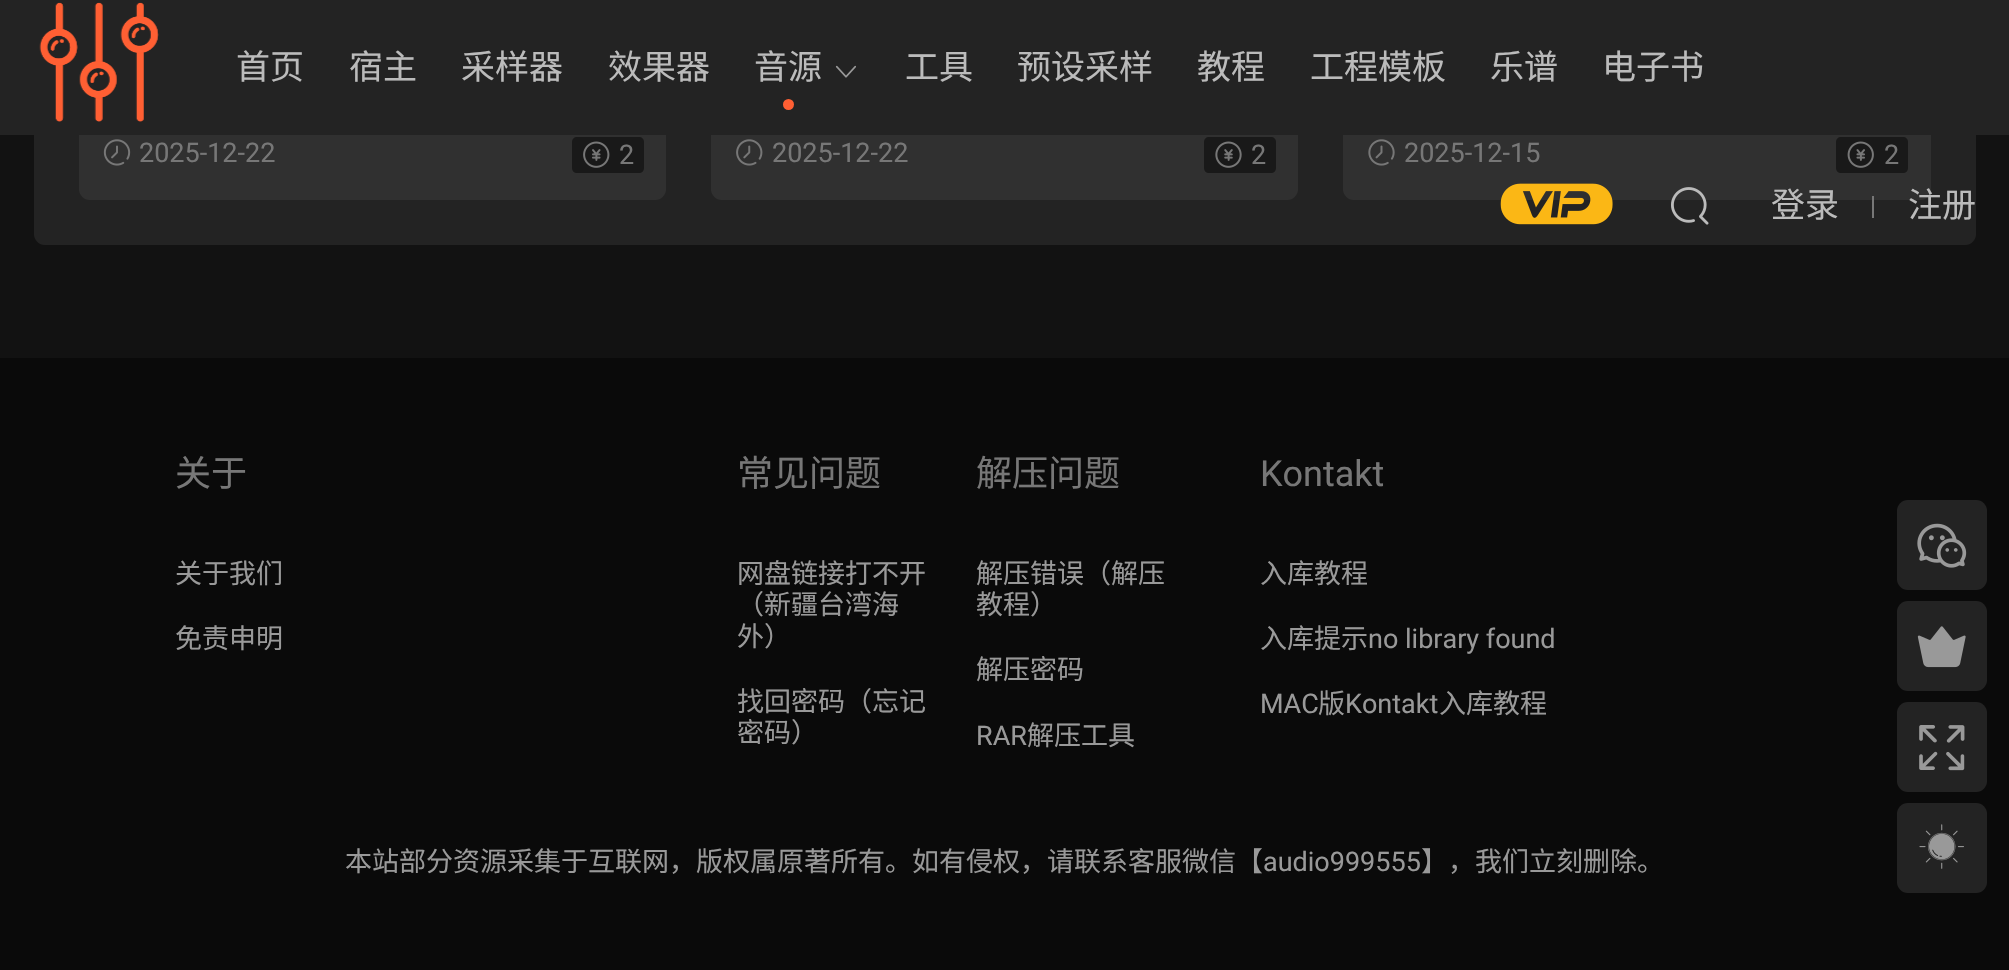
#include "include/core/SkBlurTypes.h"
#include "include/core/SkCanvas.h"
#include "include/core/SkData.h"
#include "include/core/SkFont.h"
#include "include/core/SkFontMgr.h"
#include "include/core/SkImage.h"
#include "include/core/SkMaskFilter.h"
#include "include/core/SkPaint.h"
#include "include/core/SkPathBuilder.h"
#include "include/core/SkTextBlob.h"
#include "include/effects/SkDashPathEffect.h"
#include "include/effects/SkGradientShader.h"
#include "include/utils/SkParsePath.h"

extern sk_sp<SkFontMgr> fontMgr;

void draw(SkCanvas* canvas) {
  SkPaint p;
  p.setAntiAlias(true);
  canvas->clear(SkColorSetRGB(18, 18, 18));
  p.setColor(SkColorSetRGB(35, 35, 35));
  canvas->drawRoundRect(SkRect::MakeLTRB(34, -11, 1976, 245), 11, 11, p);
  p.setColor(SkColorSetRGB(48, 48, 48));
  canvas->drawRoundRect(SkRect::MakeLTRB(79, -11, 666, 200), 11, 11, p);
  canvas->drawRoundRect(SkRect::MakeLTRB(711, -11, 1298, 200), 11, 11, p);
  canvas->drawRoundRect(SkRect::MakeLTRB(1343, -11, 1931, 200), 11, 11, p);
  p.setColor(SkColorSetRGB(35, 35, 35));
  canvas->drawRect(SkRect::MakeLTRB(0, 0, 2009, 135), p);
  canvas->drawImageRect(SkImages::DeferredFromEncodedData(SkData::MakeFromFileName("images/1.png")), SkRect::MakeLTRB(39, 2, 159, 122), SkSamplingOptions());
  p.setColor(SkColorSetRGB(255, 95, 51));
  canvas->drawCircle(788.5f, 104.5f, 5.5f, p);
  canvas->drawImageRect(SkImages::DeferredFromEncodedData(SkData::MakeFromFileName("images/2.png")), SkRect::MakeLTRB(835, 65, 856, 78), SkSamplingOptions());
  canvas->drawImageRect(SkImages::DeferredFromEncodedData(SkData::MakeFromFileName("images/3.png")), SkRect::MakeLTRB(1500, 183, 1613, 225), SkSamplingOptions());
  canvas->drawImageRect(SkImages::DeferredFromEncodedData(SkData::MakeFromFileName("images/4.png")), SkRect::MakeLTRB(1671, 187, 1709, 225), SkSamplingOptions());
  p.setColor(SkColorSetRGB(119, 119, 119));
  canvas->drawRect(SkRect::MakeLTRB(1872, 196, 1874, 218), p);
  canvas->drawImageRect(SkImages::DeferredFromEncodedData(SkData::MakeFromFileName("images/5.png")), SkRect::MakeLTRB(103, 139, 131, 166), SkSamplingOptions());
  p.setColor(SkColorSetRGB(25, 25, 25));
  canvas->drawPath(SkPathBuilder().moveTo(577, 137).lineTo(612, 137).lineTo(612, 173).lineTo(577, 173).cubicTo(574, 173, 572, 171, 572, 168).lineTo(572, 142).cubicTo(572, 139, 574, 137, 577, 137).close().detach(), p);
  canvas->drawImageRect(SkImages::DeferredFromEncodedData(SkData::MakeFromFileName("images/6.png")), SkRect::MakeLTRB(583, 141, 610, 168), SkSamplingOptions());
  canvas->drawPath(SkPathBuilder().moveTo(612, 137).lineTo(639, 137).cubicTo(642, 137, 644, 139, 644, 142).lineTo(644, 168).cubicTo(644, 171, 642, 173, 639, 173).lineTo(612, 173).close().detach(), p);
  canvas->drawImageRect(SkImages::DeferredFromEncodedData(SkData::MakeFromFileName("images/7.png")), SkRect::MakeLTRB(736, 139, 763, 166), SkSamplingOptions());
  canvas->drawPath(SkPathBuilder().moveTo(1209, 137).lineTo(1244, 137).lineTo(1244, 173).lineTo(1209, 173).cubicTo(1206, 173, 1204, 171, 1204, 168).lineTo(1204, 142).cubicTo(1204, 139, 1206, 137, 1209, 137).close().detach(), p);
  canvas->drawImageRect(SkImages::DeferredFromEncodedData(SkData::MakeFromFileName("images/8.png")), SkRect::MakeLTRB(1215, 141, 1242, 168), SkSamplingOptions());
  canvas->drawPath(SkPathBuilder().moveTo(1244, 137).lineTo(1271, 137).cubicTo(1274, 137, 1276, 139, 1276, 142).lineTo(1276, 168).cubicTo(1276, 171, 1274, 173, 1271, 173).lineTo(1244, 173).close().detach(), p);
  canvas->drawImageRect(SkImages::DeferredFromEncodedData(SkData::MakeFromFileName("images/9.png")), SkRect::MakeLTRB(1368, 139, 1395, 166), SkSamplingOptions());
  canvas->drawPath(SkPathBuilder().moveTo(1841, 137).lineTo(1877, 137).lineTo(1877, 173).lineTo(1841, 173).cubicTo(1838, 173, 1836, 171, 1836, 168).lineTo(1836, 142).cubicTo(1836, 139, 1838, 137, 1841, 137).close().detach(), p);
  canvas->drawImageRect(SkImages::DeferredFromEncodedData(SkData::MakeFromFileName("images/10.png")), SkRect::MakeLTRB(1847, 141, 1874, 168), SkSamplingOptions());
  canvas->drawPath(SkPathBuilder().moveTo(1877, 137).lineTo(1903, 137).cubicTo(1906, 137, 1908, 139, 1908, 142).lineTo(1908, 168).cubicTo(1908, 171, 1906, 173, 1903, 173).lineTo(1877, 173).close().detach(), p);
  p.setColor(SkColorSetRGB(10, 10, 10));
  canvas->drawRect(SkRect::MakeLTRB(0, 358, 2009, 970), p);
  p.setColor(SkColorSetRGB(35, 35, 35));
  canvas->drawRoundRect(SkRect::MakeLTRB(1897, 500, 1987, 590), 11, 11, p);
  canvas->drawImageRect(SkImages::DeferredFromEncodedData(SkData::MakeFromFileName("images/11.png")), SkRect::MakeLTRB(1917, 523, 1967, 568), SkSamplingOptions());
  canvas->drawRoundRect(SkRect::MakeLTRB(1897, 601, 1987, 691), 11, 11, p);
  canvas->drawImageRect(SkImages::DeferredFromEncodedData(SkData::MakeFromFileName("images/12.png")), SkRect::MakeLTRB(1917, 626, 1966, 668), SkSamplingOptions());
  canvas->drawRoundRect(SkRect::MakeLTRB(1897, 702, 1987, 792), 11, 11, p);
  canvas->drawImageRect(SkImages::DeferredFromEncodedData(SkData::MakeFromFileName("images/13.png")), SkRect::MakeLTRB(1919, 725, 1965, 771), SkSamplingOptions());
  canvas->drawRoundRect(SkRect::MakeLTRB(1897, 803, 1987, 893), 11, 11, p);
  canvas->drawImageRect(SkImages::DeferredFromEncodedData(SkData::MakeFromFileName("images/14.png")), SkRect::MakeLTRB(1919, 824, 1964, 869), SkSamplingOptions());
  SkFont font1(fontMgr->matchFamilyStyle("Noto Sans CJK SC", SkFontStyle::Normal()), 34);
  font1.setSubpixel(true);
  p.setColor(SkColorSetRGB(187, 187, 187));
  canvas->drawString("首页", 236, 79, font1, p);
  canvas->drawString("宿主", 349, 79, font1, p);
  canvas->drawString("采样器", 461, 79, font1, p);
  canvas->drawString("效果器", 608, 79, font1, p);
  canvas->drawString("音源", 754, 79, font1, p);
  canvas->drawString("工具", 905, 79, font1, p);
  canvas->drawString("预设采样", 1017, 79, font1, p);
  canvas->drawString("教程", 1197, 79, font1, p);
  canvas->drawString("工程模板", 1310, 79, font1, p);
  canvas->drawString("乐谱", 1490, 79, font1, p);
  canvas->drawString("电子书", 1602, 79, font1, p);
  canvas->drawString("登录", 1771, 217, font1, p);
  canvas->drawString("注册", 1908, 217, font1, p);
  SkFont font2(fontMgr->matchFamilyStyle("Roboto", SkFontStyle::Normal()), 27);
  font2.setSubpixel(true);
  p.setColor(SkColorSetRGB(119, 119, 119));
  canvas->drawString("2025-12-22", 139, 162, font2, p);
  canvas->drawString("2", 619, 164, font2, p);
  canvas->drawString("2025-12-22", 772, 162, font2, p);
  canvas->drawString("2", 1251, 164, font2, p);
  canvas->drawString("2025-12-15", 1404, 162, font2, p);
  canvas->drawString("2", 1884, 164, font2, p);
  SkFont font3(fontMgr->matchFamilyStyle("Noto Sans CJK SC", SkFontStyle::Normal()), 36);
  font3.setSubpixel(true);
  canvas->drawString("关于", 175, 486, font3, p);
  SkFont font4(fontMgr->matchFamilyStyle("Noto Sans CJK SC", SkFontStyle::Normal()), 27);
  font4.setSubpixel(true);
  p.setColor(SkColorSetRGB(153, 153, 153));
  canvas->drawString("关于我们", 175, 583, font4, p);
  canvas->drawString("免责申明", 175, 648, font4, p);
  p.setColor(SkColorSetRGB(119, 119, 119));
  canvas->drawString("常见问题", 737, 486, font3, p);
  p.setColor(SkColorSetRGB(153, 153, 153));
  canvas->drawString("网盘链接打不开", 737, 583, font4, p);
  canvas->drawString("（新疆台湾海", 737, 614, font4, p);
  canvas->drawString("外）", 737, 646, font4, p);
  canvas->drawString("找回密码（忘记", 737, 711, font4, p);
  canvas->drawString("密码）", 737, 742, font4, p);
  p.setColor(SkColorSetRGB(119, 119, 119));
  canvas->drawString("解压问题", 976, 486, font3, p);
  p.setColor(SkColorSetRGB(153, 153, 153));
  canvas->drawString("解压错误（解压", 976, 583, font4, p);
  canvas->drawString("教程）", 976, 614, font4, p);
  canvas->drawString("解压密码", 976, 679, font4, p);
  canvas->drawString("RAR", 976, 745, font2, p);
  canvas->drawString("解压工具", 1027, 745, font4, p);
  SkFont font5(fontMgr->matchFamilyStyle("Roboto", SkFontStyle::Normal()), 36);
  font5.setSubpixel(true);
  p.setColor(SkColorSetRGB(119, 119, 119));
  canvas->drawString("Kontakt", 1260, 486, font5, p);
  p.setColor(SkColorSetRGB(153, 153, 153));
  canvas->drawString("入库教程", 1260, 583, font4, p);
  canvas->drawString("入库提示", 1260, 648, font4, p);
  canvas->drawString("no library found", 1368, 648, font2, p);
  canvas->drawString("MAC", 1260, 713, font2, p);
  canvas->drawString("版", 1318, 713, font4, p);
  canvas->drawString("Kontakt", 1345, 713, font2, p);
  canvas->drawString("入库教程", 1439, 713, font4, p);
  canvas->drawString("本站部分资源采集于互联网，版权属原著所有。如有侵权，请联系客服微信【", 345, 871, font4, p);
  canvas->drawString("audio999555", 1263, 871, font2, p);
  canvas->drawString("】，我们立刻删除。", 1421, 871, font4, p);
}
